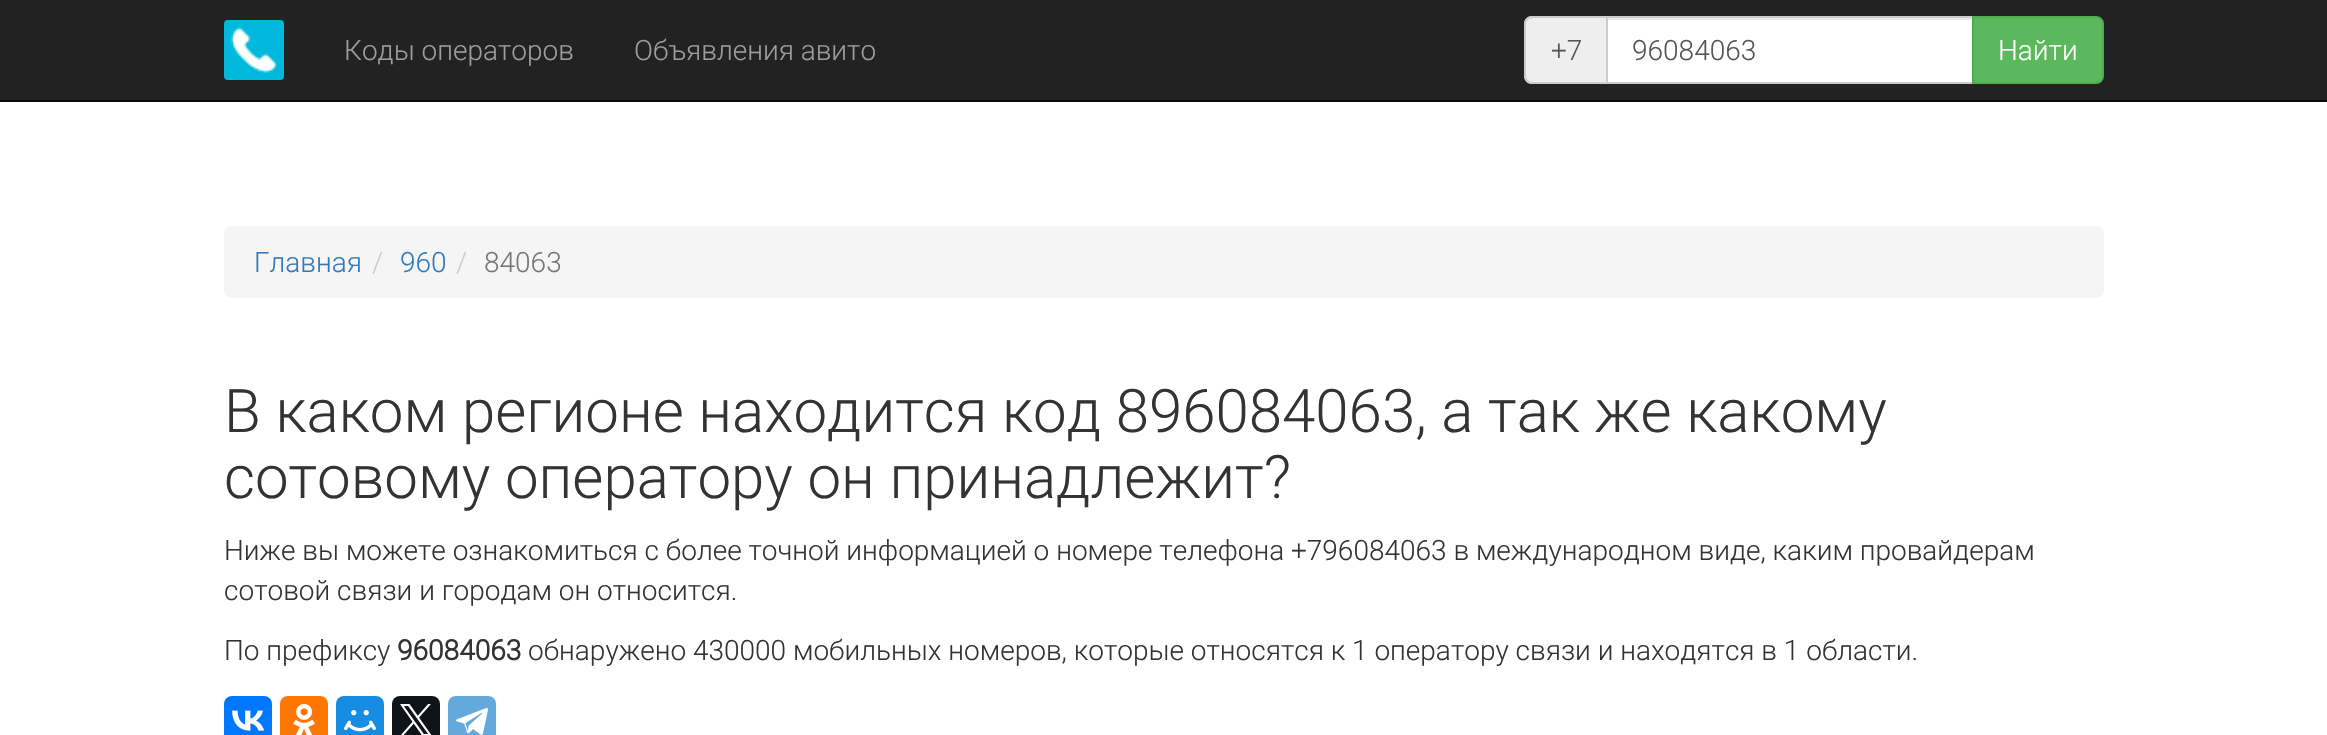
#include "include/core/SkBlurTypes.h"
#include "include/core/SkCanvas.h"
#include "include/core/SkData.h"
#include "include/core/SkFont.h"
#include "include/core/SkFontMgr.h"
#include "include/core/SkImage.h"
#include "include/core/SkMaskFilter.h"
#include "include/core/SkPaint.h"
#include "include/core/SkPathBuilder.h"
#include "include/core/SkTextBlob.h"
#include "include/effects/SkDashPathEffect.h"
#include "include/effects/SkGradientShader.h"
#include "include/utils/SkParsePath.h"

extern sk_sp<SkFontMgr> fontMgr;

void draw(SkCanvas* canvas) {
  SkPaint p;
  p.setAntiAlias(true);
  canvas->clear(SK_ColorWHITE);
  p.setColor(SkColorSetRGB(34, 34, 34));
  canvas->drawRect(SkRect::MakeLTRB(0, 0, 2327, 100), p);
  p.setColor(SkColorSetRGB(8, 8, 8));
  canvas->drawRect(SkRect::MakeLTRB(0, 100, 2327, 102), p);
  canvas->drawImageRect(SkImages::DeferredFromEncodedData(SkData::MakeFromFileName("images/1.png")), SkRect::MakeLTRB(224, 20, 284, 80), SkSamplingOptions());
  p.setColor(SkColorSetRGB(238, 238, 238));
  canvas->drawPath(SkPathBuilder().moveTo(1532, 16).lineTo(1606, 16).lineTo(1606, 84).lineTo(1532, 84).cubicTo(1527.5f, 84, 1524, 80.5f, 1524, 76).lineTo(1524, 24).cubicTo(1524, 19.5f, 1527.5f, 16, 1532, 16).close().detach(), p);
  p.setColor(SkColorSetRGB(204, 204, 204));
  canvas->drawPath(SkPathBuilder(SkPathFillType::kEvenOdd).moveTo(1532, 16).lineTo(1606, 16).lineTo(1606, 84).lineTo(1532, 84).cubicTo(1528, 84, 1524, 80, 1524, 76).lineTo(1524, 24).cubicTo(1524, 20, 1528, 16, 1532, 16).close().moveTo(1532, 18).lineTo(1606, 18).lineTo(1606, 82).lineTo(1532, 82).cubicTo(1529, 82, 1526, 79, 1526, 76).lineTo(1526, 24).cubicTo(1526, 21, 1529, 18, 1532, 18).close().detach(), p);
  p.setColor(SK_ColorWHITE);
  canvas->drawRect(SkRect::MakeLTRB(1608, 20, 1972, 82), p);
  p.setColor(SkColorSetRGB(236, 236, 236));
  canvas->drawRect(SkRect::MakeLTRB(1608, 18, 1972, 20), p);
  p.setStyle(SkPaint::kStroke_Style);
  p.setStrokeWidth(2);
  p.setColor(SkColorSetRGB(204, 204, 204));
  canvas->drawRect(SkRect::MakeLTRB(1607, 17, 1973, 83), p);
  p.setStyle(SkPaint::kFill_Style);
  p.setColor(SkColorSetRGB(92, 184, 92));
  canvas->drawPath(SkPathBuilder().moveTo(1973, 17).lineTo(2096, 17).cubicTo(2100, 17, 2103, 20, 2103, 24).lineTo(2103, 76).cubicTo(2103, 80, 2100, 83, 2096, 83).lineTo(1973, 83).close().detach(), p);
  p.setStyle(SkPaint::kStroke_Style);
  p.setColor(SkColorSetRGB(76, 174, 76));
  canvas->drawPath(SkPathBuilder().moveTo(1973, 17).lineTo(2096, 17).cubicTo(2100, 17, 2103, 20, 2103, 24).lineTo(2103, 76).cubicTo(2103, 80, 2100, 83, 2096, 83).lineTo(1973, 83).close().detach(), p);
  p.setStyle(SkPaint::kFill_Style);
  p.setColor(SkColorSetRGB(245, 245, 245));
  canvas->drawRoundRect(SkRect::MakeLTRB(224, 226, 2104, 298), 8, 8, p);
  p.setColor(SkColorSetRGB(0, 119, 255));
  canvas->drawRoundRect(SkRect::MakeLTRB(224, 696, 272, 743), 8, 8, p);
  canvas->drawImageRect(SkImages::DeferredFromEncodedData(SkData::MakeFromFileName("images/2.png")), SkRect::MakeLTRB(232, 710, 265, 731), SkSamplingOptions());
  p.setColor(SkColorSetRGB(255, 119, 0));
  canvas->drawRoundRect(SkRect::MakeLTRB(280, 696, 328, 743), 8, 8, p);
  canvas->drawImageRect(SkImages::DeferredFromEncodedData(SkData::MakeFromFileName("images/3.png")), SkRect::MakeLTRB(293, 704, 315, 735), SkSamplingOptions());
  p.setColor(SkColorSetRGB(22, 141, 226));
  canvas->drawRoundRect(SkRect::MakeLTRB(336, 696, 384, 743), 8, 8, p);
  canvas->drawImageRect(SkImages::DeferredFromEncodedData(SkData::MakeFromFileName("images/4.png")), SkRect::MakeLTRB(344, 710, 376, 732), SkSamplingOptions());
  p.setColor(SkColorSetRGB(15, 20, 25));
  canvas->drawRoundRect(SkRect::MakeLTRB(392, 696, 440, 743), 8, 8, p);
  canvas->drawImageRect(SkImages::DeferredFromEncodedData(SkData::MakeFromFileName("images/5.png")), SkRect::MakeLTRB(400, 704, 432, 735), SkSamplingOptions());
  p.setColor(SkColorSetRGB(100, 169, 220));
  canvas->drawRoundRect(SkRect::MakeLTRB(448, 696, 496, 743), 8, 8, p);
  canvas->drawImageRect(SkImages::DeferredFromEncodedData(SkData::MakeFromFileName("images/6.png")), SkRect::MakeLTRB(456, 708, 488, 735), SkSamplingOptions());
  SkFont font1(fontMgr->matchFamilyStyle("Roboto", SkFontStyle(300, SkFontStyle::kNormal_Width, SkFontStyle::kUpright_Slant)), 28);
  font1.setSubpixel(true);
  p.setColor(SkColorSetRGB(157, 157, 157));
  canvas->drawString("Коды операторов", 344, 60, font1, p);
  canvas->drawString("Объявления авито", 634, 60, font1, p);
  p.setColor(SkColorSetRGB(85, 85, 85));
  canvas->drawString("+7", 1551, 60, font1, p);
  canvas->drawString("96084063", 1632, 60, font1, p);
  p.setColor(SK_ColorWHITE);
  canvas->drawString("Найти", 1998, 60, font1, p);
  p.setColor(SkColorSetRGB(51, 122, 183));
  canvas->drawString("Главная", 254, 272, font1, p);
  p.setColor(SkColorSetRGB(204, 204, 204));
  canvas->drawString("/", 372, 272, font1, p);
  p.setColor(SkColorSetRGB(51, 122, 183));
  canvas->drawString("960", 400, 272, font1, p);
  p.setColor(SkColorSetRGB(204, 204, 204));
  canvas->drawString("/", 456, 272, font1, p);
  p.setColor(SkColorSetRGB(119, 119, 119));
  canvas->drawString("84063", 484, 272, font1, p);
  SkFont font2(fontMgr->matchFamilyStyle("Roboto", SkFontStyle(300, SkFontStyle::kNormal_Width, SkFontStyle::kUpright_Slant)), 60);
  font2.setSubpixel(true);
  p.setColor(SkColorSetRGB(51, 51, 51));
  canvas->drawString("В каком регионе находится код 896084063, а так же какому", 224, 432, font2, p);
  canvas->drawString("сотовому оператору он принадлежит?", 224, 498, font2, p);
  canvas->drawString("Ниже вы можете ознакомиться с более точной информацией о номере телефона +796084063 в международном виде, каким провайдерам", 224, 560, font1, p);
  canvas->drawString("сотовой связи и городам он относится.", 224, 600, font1, p);
  canvas->drawString("По префиксу", 224, 660, font1, p);
  SkFont font3(fontMgr->matchFamilyStyle("Roboto", SkFontStyle::Bold()), 28);
  font3.setSubpixel(true);
  canvas->drawString("96084063", 397, 660, font3, p);
  canvas->drawString("обнаружено 430000 мобильных номеров, которые относятся к 1 оператору связи и находятся в 1 области.", 528, 660, font1, p);
}
